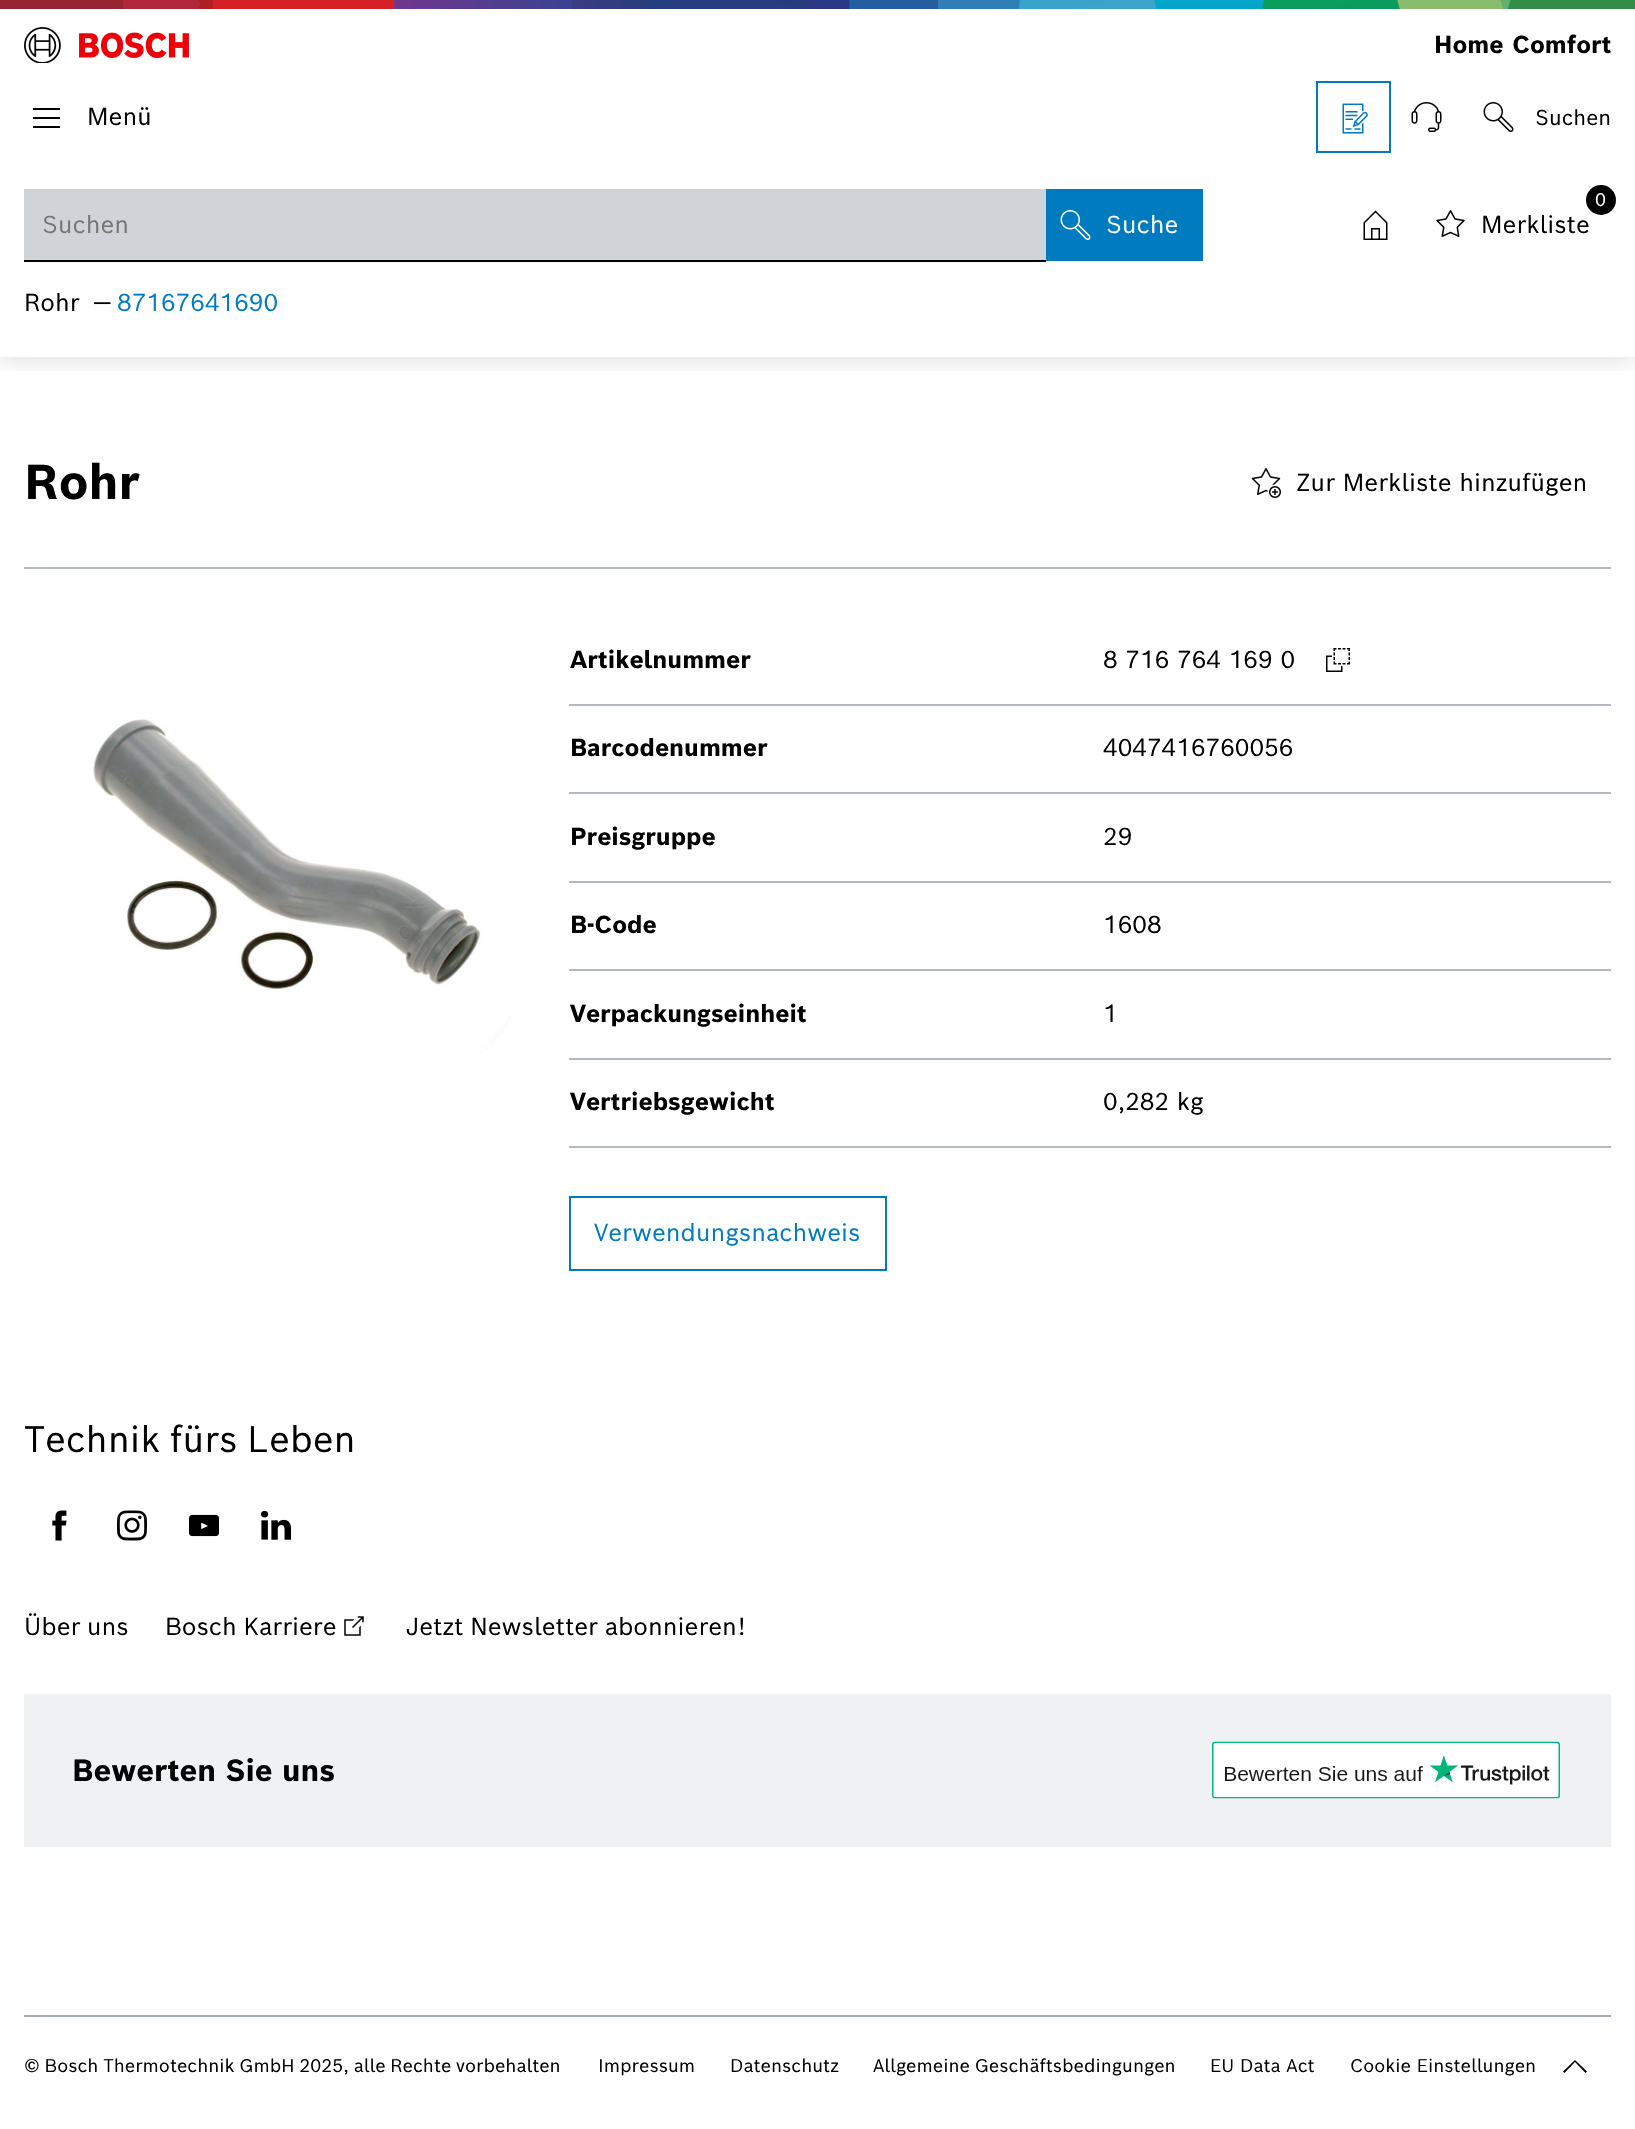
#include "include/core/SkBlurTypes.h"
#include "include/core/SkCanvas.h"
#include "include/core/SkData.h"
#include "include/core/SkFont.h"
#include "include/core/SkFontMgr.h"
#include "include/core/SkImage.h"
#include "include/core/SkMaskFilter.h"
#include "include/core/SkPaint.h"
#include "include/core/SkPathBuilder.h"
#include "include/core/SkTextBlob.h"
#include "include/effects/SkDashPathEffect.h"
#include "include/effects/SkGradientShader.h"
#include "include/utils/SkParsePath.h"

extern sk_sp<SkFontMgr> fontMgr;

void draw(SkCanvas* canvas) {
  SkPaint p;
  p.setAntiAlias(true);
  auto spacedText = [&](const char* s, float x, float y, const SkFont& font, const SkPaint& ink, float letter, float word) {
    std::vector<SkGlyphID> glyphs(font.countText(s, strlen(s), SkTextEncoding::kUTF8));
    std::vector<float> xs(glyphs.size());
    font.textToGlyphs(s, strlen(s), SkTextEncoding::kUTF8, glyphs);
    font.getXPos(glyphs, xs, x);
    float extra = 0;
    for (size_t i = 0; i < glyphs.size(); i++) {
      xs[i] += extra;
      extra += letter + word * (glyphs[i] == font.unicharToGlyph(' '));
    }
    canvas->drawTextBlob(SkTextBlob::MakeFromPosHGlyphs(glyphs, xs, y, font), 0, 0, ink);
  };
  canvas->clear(SK_ColorWHITE);
  canvas->save();
  canvas->clipRect(SkRect::MakeLTRB(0, 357, 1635, 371));
  p.setColor(SkColorSetARGB(41, 0, 0, 0));
  p.setMaskFilter(SkMaskFilter::MakeBlur(kNormal_SkBlurStyle, 12));
  canvas->drawRect(SkRect::MakeLTRB(0, 153, 1635, 357), p);
  p.setMaskFilter(nullptr);
  canvas->restore();
  p.setColor(SK_ColorWHITE);
  canvas->drawRect(SkRect::MakeLTRB(0, 135, 1635, 153), p);
  canvas->drawImageRect(SkImages::DeferredFromEncodedData(SkData::MakeFromFileName("images/1.png")), SkRect::MakeLTRB(0, 0, 1635, 9), SkSamplingOptions());
  canvas->drawImageRect(SkImages::DeferredFromEncodedData(SkData::MakeFromFileName("images/2.png")), SkRect::MakeLTRB(24, 27, 189, 63), SkSamplingOptions());
  p.setStyle(SkPaint::kStroke_Style);
  p.setStrokeWidth(2);
  p.setColor(SkColorSetRGB(0, 123, 192));
  canvas->drawRect(SkRect::MakeLTRB(1317, 82, 1390, 152), p);
  canvas->drawImageRect(SkImages::DeferredFromEncodedData(SkData::MakeFromFileName("images/3.png")), SkRect::MakeLTRB(1342, 103, 1368, 134), SkSamplingOptions());
  canvas->drawImageRect(SkImages::DeferredFromEncodedData(SkData::MakeFromFileName("images/4.png")), SkRect::MakeLTRB(1411, 102, 1442, 132), SkSamplingOptions());
  canvas->drawImageRect(SkImages::DeferredFromEncodedData(SkData::MakeFromFileName("images/5.png")), SkRect::MakeLTRB(1483, 102, 1514, 132), SkSamplingOptions());
  p.setStyle(SkPaint::kFill_Style);
  p.setColor(SK_ColorBLACK);
  canvas->drawRect(SkRect::MakeLTRB(33, 108, 60, 110), p);
  canvas->drawRect(SkRect::MakeLTRB(33, 117, 60, 119), p);
  canvas->drawRect(SkRect::MakeLTRB(33, 126, 60, 128), p);
  p.setColor(SkColorSetRGB(208, 212, 216));
  canvas->drawRect(SkRect::MakeLTRB(24, 189, 1046, 260), p);
  p.setColor(SK_ColorBLACK);
  canvas->drawRect(SkRect::MakeLTRB(24, 260, 1046, 262), p);
  p.setColor(SkColorSetRGB(0, 123, 192));
  canvas->drawRect(SkRect::MakeLTRB(1046, 189, 1203, 261), p);
  canvas->drawImageRect(SkImages::DeferredFromEncodedData(SkData::MakeFromFileName("images/6.png")), SkRect::MakeLTRB(1060, 210, 1091, 240), SkSamplingOptions());
  canvas->drawImageRect(SkImages::DeferredFromEncodedData(SkData::MakeFromFileName("images/7.png")), SkRect::MakeLTRB(1363, 210, 1388, 240), SkSamplingOptions());
  p.setColor(SK_ColorBLACK);
  canvas->drawCircle(1601, 200, 15, p);
  canvas->drawImageRect(SkImages::DeferredFromEncodedData(SkData::MakeFromFileName("images/8.png")), SkRect::MakeLTRB(1436, 210, 1465, 237), SkSamplingOptions());
  p.setColor(SkColorSetRGB(178, 185, 192));
  canvas->drawRect(SkRect::MakeLTRB(24, 567, 1611, 569), p);
  canvas->drawImageRect(SkImages::DeferredFromEncodedData(SkData::MakeFromFileName("images/9.png")), SkRect::MakeLTRB(1251, 468, 1281, 498), SkSamplingOptions());
  canvas->drawImageRect(SkImages::DeferredFromEncodedData(SkData::MakeFromFileName("images/10.png")), SkRect::MakeLTRB(93, 719, 519, 1053), SkSamplingOptions());
  canvas->drawRect(SkRect::MakeLTRB(569, 704, 1611, 706), p);
  canvas->drawImageRect(SkImages::DeferredFromEncodedData(SkData::MakeFromFileName("images/11.png")), SkRect::MakeLTRB(1326, 648, 1350, 672), SkSamplingOptions());
  canvas->drawRect(SkRect::MakeLTRB(569, 792, 1611, 794), p);
  canvas->drawRect(SkRect::MakeLTRB(569, 881, 1611, 883), p);
  canvas->drawRect(SkRect::MakeLTRB(569, 969, 1611, 971), p);
  canvas->drawRect(SkRect::MakeLTRB(569, 1058, 1611, 1060), p);
  canvas->drawRect(SkRect::MakeLTRB(569, 1146, 1611, 1148), p);
  p.setStyle(SkPaint::kStroke_Style);
  p.setColor(SkColorSetRGB(0, 123, 192));
  canvas->drawRect(SkRect::MakeLTRB(570, 1197, 886, 1270), p);
  canvas->drawImageRect(SkImages::DeferredFromEncodedData(SkData::MakeFromFileName("images/12.png")), SkRect::MakeLTRB(52, 1510, 67, 1541), SkSamplingOptions());
  canvas->drawImageRect(SkImages::DeferredFromEncodedData(SkData::MakeFromFileName("images/13.png")), SkRect::MakeLTRB(117, 1510, 147, 1541), SkSamplingOptions());
  canvas->drawImageRect(SkImages::DeferredFromEncodedData(SkData::MakeFromFileName("images/14.png")), SkRect::MakeLTRB(189, 1514, 219, 1537), SkSamplingOptions());
  canvas->drawImageRect(SkImages::DeferredFromEncodedData(SkData::MakeFromFileName("images/15.png")), SkRect::MakeLTRB(261, 1510, 292, 1540), SkSamplingOptions());
  canvas->drawImageRect(SkImages::DeferredFromEncodedData(SkData::MakeFromFileName("images/16.png")), SkRect::MakeLTRB(344, 1616, 364, 1636), SkSamplingOptions());
  p.setStyle(SkPaint::kFill_Style);
  p.setColor(SkColorSetRGB(239, 241, 242));
  canvas->drawRect(SkRect::MakeLTRB(24, 1694, 1611, 1847), p);
  canvas->drawImageRect(SkImages::DeferredFromEncodedData(SkData::MakeFromFileName("images/17.png")), SkRect::MakeLTRB(1212, 1741, 1560, 1799), SkSamplingOptions());
  p.setColor(SkColorSetRGB(164, 171, 179));
  canvas->drawRect(SkRect::MakeLTRB(24, 2015, 1611, 2017), p);
  p.setColor(SK_ColorBLACK);
  canvas->drawPath(SkPathBuilder().moveTo(1587, 2071.5f).lineTo(1585.5f, 2073).lineTo(1575, 2062).lineTo(1564.5f, 2073).lineTo(1563, 2071.5f).lineTo(1575, 2060).close().detach(), p);
  SkFont font1(fontMgr->matchFamilyStyle("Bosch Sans", SkFontStyle::Bold()), 24);
  font1.setSubpixel(true);
  spacedText("Home Comfort", 1434, 53, font1, p, 0, 1);
  SkFont font2(fontMgr->matchFamilyStyle("Bosch Sans", SkFontStyle::Normal()), 21);
  font2.setSubpixel(true);
  canvas->drawString("Suchen", 1535, 125, font2, p);
  SkFont font3(fontMgr->matchFamilyStyle("Bosch Sans", SkFontStyle::Normal()), 24);
  font3.setSubpixel(true);
  canvas->drawString("Menü", 87, 125, font3, p);
  p.setColor(SkColorSetRGB(117, 117, 117));
  canvas->drawString("Suchen", 42, 233, font3, p);
  p.setColor(SK_ColorWHITE);
  canvas->drawString("Suche", 1106, 233, font3, p);
  SkFont font4(fontMgr->matchFamilyStyle("Bosch Sans", SkFontStyle::Normal()), 18);
  font4.setSubpixel(true);
  canvas->drawString("0", 1595, 206, font4, p);
  p.setColor(SK_ColorBLACK);
  canvas->drawString("Merkliste", 1481, 233, font3, p);
  canvas->drawString("Rohr", 24, 311, font3, p);
  canvas->drawString("—", 95, 311, font3, p);
  p.setColor(SkColorSetRGB(0, 123, 192));
  canvas->drawString("87167641690", 117, 311, font3, p);
  SkFont font5(fontMgr->matchFamilyStyle("Bosch Sans", SkFontStyle::Bold()), 48);
  font5.setSubpixel(true);
  p.setColor(SK_ColorBLACK);
  canvas->drawString("Rohr", 24, 499, font5, p);
  canvas->drawString("Zur Merkliste hinzufügen", 1296, 491, font3, p);
  canvas->drawString("Artikelnummer", 570, 668, font1, p);
  canvas->drawString("8 716 764 169 0", 1103, 668, font3, p);
  canvas->drawString("Barcodenummer", 570, 756, font1, p);
  canvas->drawString("4047416760056", 1103, 756, font3, p);
  canvas->drawString("Preisgruppe", 570, 845, font1, p);
  canvas->drawString("29", 1103, 845, font3, p);
  canvas->drawString("B-Code", 570, 933, font1, p);
  canvas->drawString("1608", 1103, 933, font3, p);
  canvas->drawString("Verpackungseinheit", 570, 1022, font1, p);
  canvas->drawString("1", 1103, 1022, font3, p);
  canvas->drawString("Vertriebsgewicht", 570, 1110, font1, p);
  canvas->drawString("0,282 kg", 1103, 1110, font3, p);
  p.setColor(SkColorSetRGB(0, 123, 192));
  canvas->drawString("Verwendungsnachweis", 594, 1241, font3, p);
  SkFont font6(fontMgr->matchFamilyStyle("Bosch Sans", SkFontStyle::Normal()), 36);
  font6.setSubpixel(true);
  p.setColor(SK_ColorBLACK);
  spacedText("Technik fürs Leben", 24, 1452, font6, p, 0, -2);
  spacedText("Über uns", 24, 1635, font3, p, 0, -1);
  spacedText("Bosch Karriere", 165, 1635, font3, p, 0, -1);
  spacedText("Jetzt Newsletter abonnieren!", 406, 1635, font3, p, 0, -1);
  SkFont font7(fontMgr->matchFamilyStyle("Bosch Sans", SkFontStyle::Bold()), 30);
  font7.setSubpixel(true);
  canvas->drawString("Bewerten Sie uns", 72, 1781, font7, p);
  spacedText("© Bosch Thermotechnik GmbH 2025, alle Rechte vorbehalten", 24, 2072, font4, p, 0, -1);
  canvas->drawString("Impressum", 598, 2072, font4, p);
  canvas->drawString("Datenschutz", 730, 2072, font4, p);
  spacedText("Allgemeine Geschäftsbedingungen", 873, 2072, font4, p, 0, -1);
  canvas->drawString("EU Data Act", 1210, 2072, font4, p);
  canvas->drawString("Cookie Einstellungen", 1350, 2072, font4, p);
}
